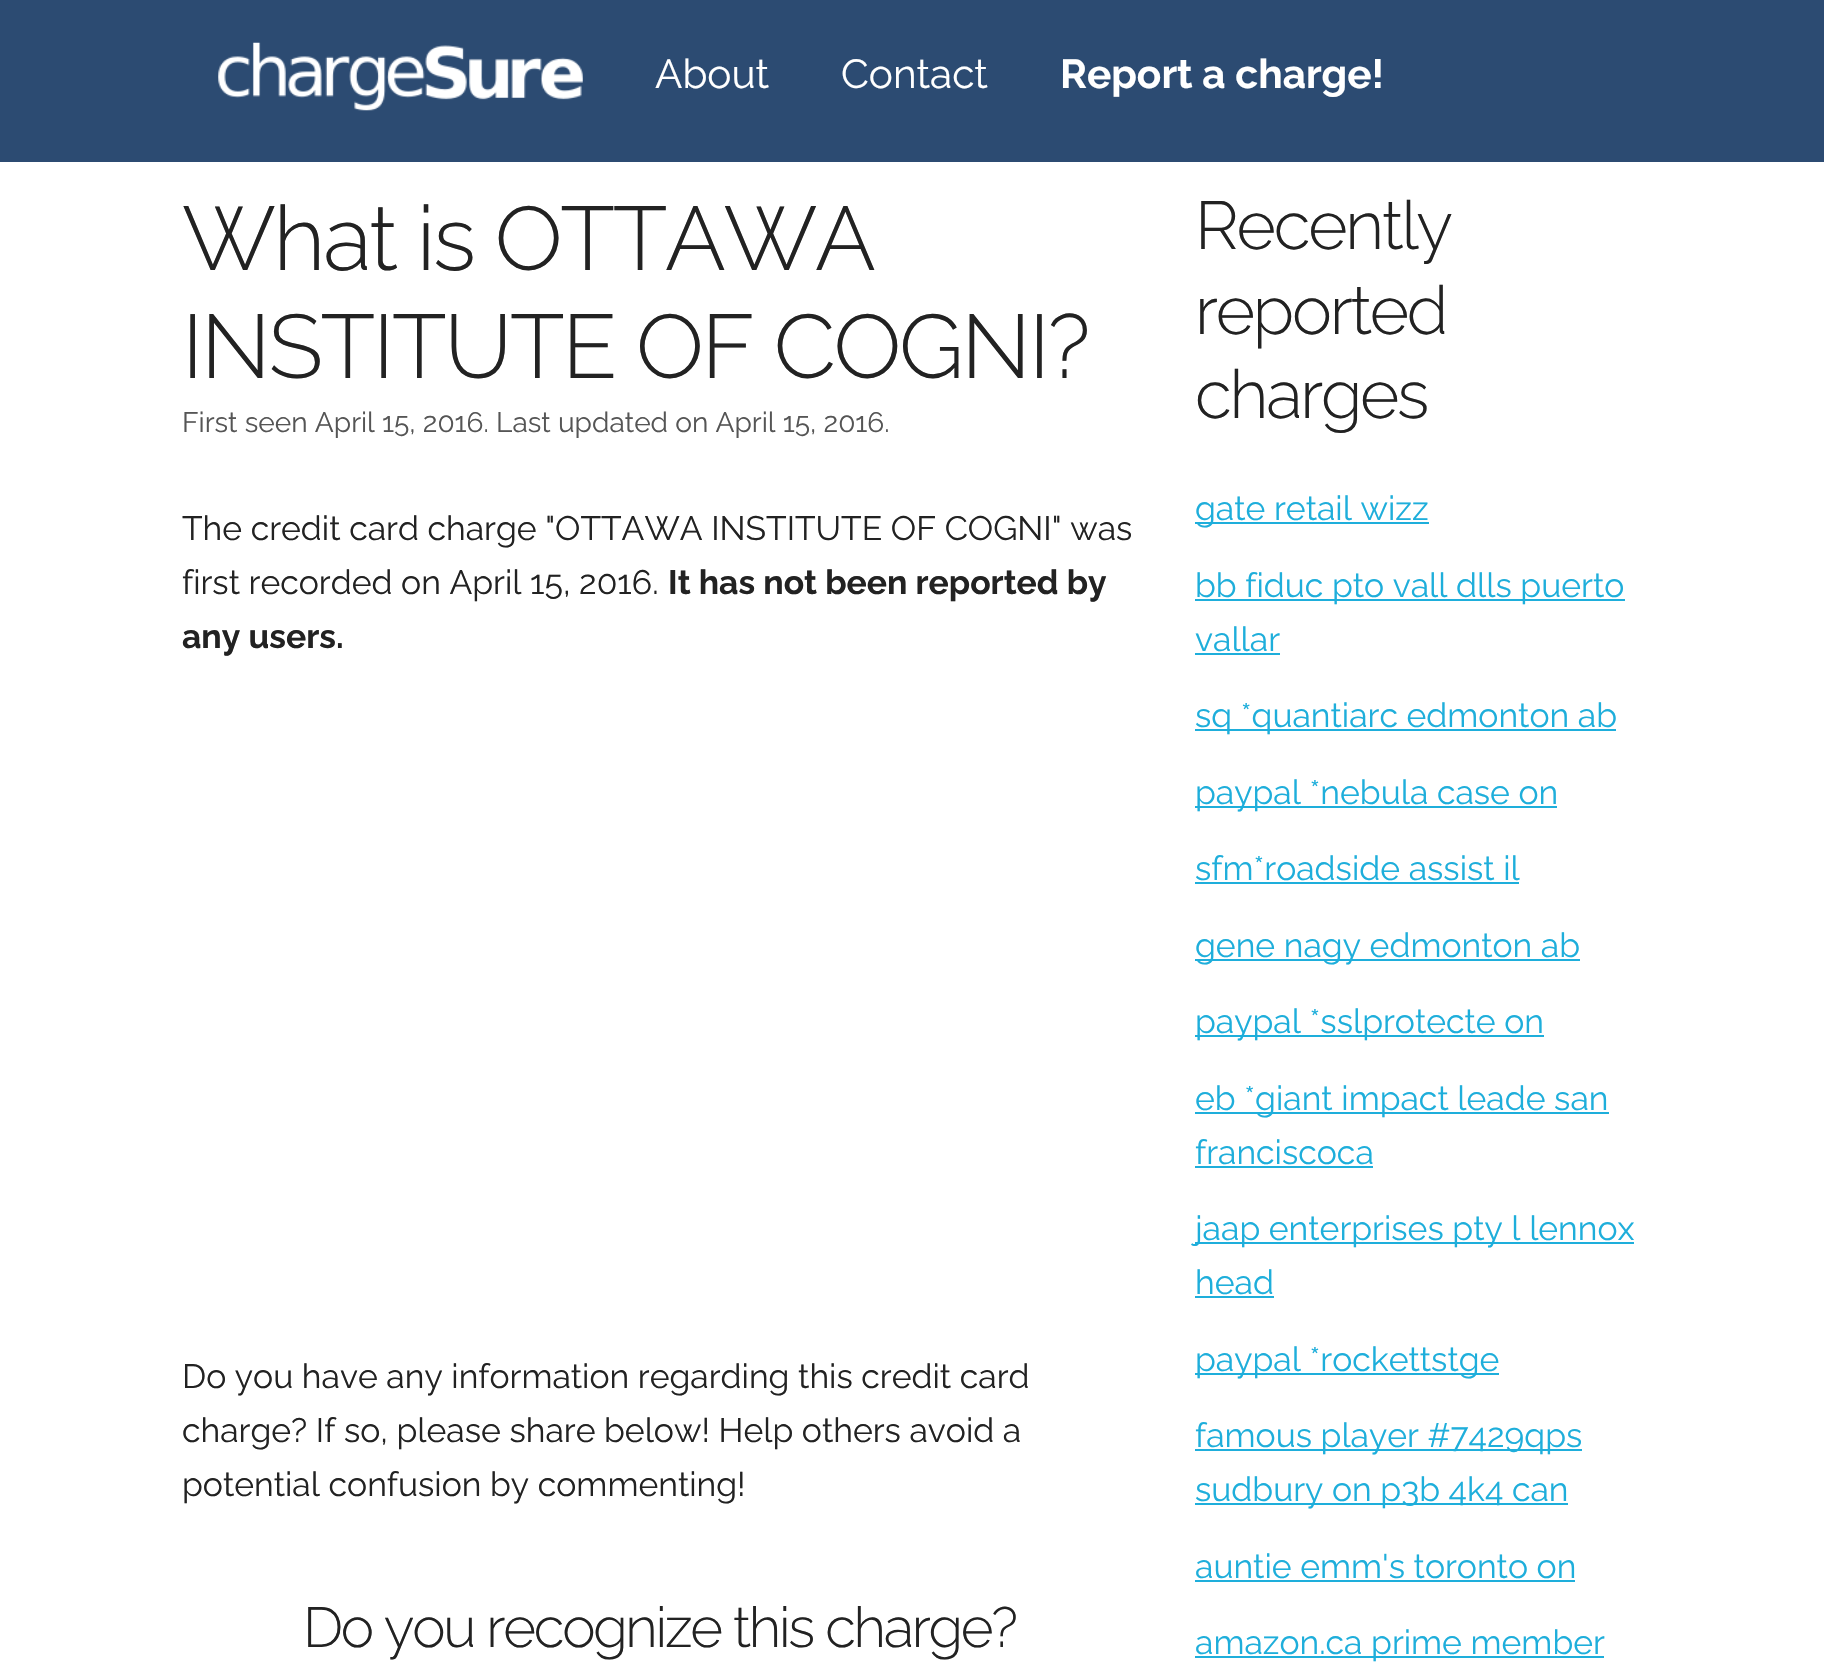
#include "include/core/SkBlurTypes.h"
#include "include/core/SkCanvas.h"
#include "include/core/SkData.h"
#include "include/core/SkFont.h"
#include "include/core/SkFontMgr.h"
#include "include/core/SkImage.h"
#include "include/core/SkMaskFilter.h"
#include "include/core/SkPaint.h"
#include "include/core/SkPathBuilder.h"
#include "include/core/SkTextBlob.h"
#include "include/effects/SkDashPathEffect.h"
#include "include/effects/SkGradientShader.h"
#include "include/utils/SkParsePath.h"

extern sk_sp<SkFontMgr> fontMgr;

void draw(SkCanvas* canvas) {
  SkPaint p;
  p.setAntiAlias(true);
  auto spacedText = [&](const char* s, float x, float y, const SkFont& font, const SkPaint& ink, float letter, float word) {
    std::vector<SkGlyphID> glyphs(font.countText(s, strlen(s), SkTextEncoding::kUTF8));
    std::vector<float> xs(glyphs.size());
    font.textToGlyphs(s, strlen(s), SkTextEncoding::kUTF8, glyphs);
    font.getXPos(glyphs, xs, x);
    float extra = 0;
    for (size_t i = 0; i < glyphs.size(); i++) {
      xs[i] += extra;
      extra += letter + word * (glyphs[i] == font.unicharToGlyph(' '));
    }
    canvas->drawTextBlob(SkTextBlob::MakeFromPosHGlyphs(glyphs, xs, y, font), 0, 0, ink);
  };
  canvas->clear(SK_ColorWHITE);
  p.setColor(SkColorSetRGB(44, 75, 114));
  canvas->drawRect(SkRect::MakeLTRB(0, 0, 1824, 162), p);
  canvas->drawImageRect(SkImages::DeferredFromEncodedData(SkData::MakeFromFileName("images/1.png")), SkRect::MakeLTRB(218, 42, 583, 111), SkSamplingOptions());
  p.setColor(SkColorSetRGB(30, 174, 219));
  canvas->drawRect(SkRect::MakeLTRB(1195, 522, 1429, 524), p);
  canvas->drawRect(SkRect::MakeLTRB(1195, 599, 1625, 601), p);
  canvas->drawRect(SkRect::MakeLTRB(1195, 653, 1280, 655), p);
  canvas->drawRect(SkRect::MakeLTRB(1195, 729, 1616, 731), p);
  canvas->drawRect(SkRect::MakeLTRB(1195, 806, 1557, 808), p);
  canvas->drawRect(SkRect::MakeLTRB(1195, 882, 1519, 884), p);
  canvas->drawRect(SkRect::MakeLTRB(1195, 959, 1580, 961), p);
  canvas->drawRect(SkRect::MakeLTRB(1195, 1035, 1544, 1037), p);
  canvas->drawRect(SkRect::MakeLTRB(1195, 1112, 1609, 1114), p);
  canvas->drawRect(SkRect::MakeLTRB(1195, 1166, 1373, 1168), p);
  canvas->drawRect(SkRect::MakeLTRB(1195, 1242, 1634, 1244), p);
  canvas->drawRect(SkRect::MakeLTRB(1195, 1296, 1274, 1298), p);
  canvas->drawRect(SkRect::MakeLTRB(1195, 1373, 1499, 1375), p);
  canvas->drawRect(SkRect::MakeLTRB(1195, 1449, 1582, 1451), p);
  canvas->drawRect(SkRect::MakeLTRB(1195, 1503, 1568, 1505), p);
  canvas->drawRect(SkRect::MakeLTRB(1195, 1580, 1575, 1582), p);
  canvas->drawRect(SkRect::MakeLTRB(1195, 1656, 1604, 1658), p);
  SkFont font1(fontMgr->matchFamilyStyle("Raleway", SkFontStyle::Normal()), 40.5f);
  font1.setSubpixel(true);
  p.setColor(SK_ColorWHITE);
  canvas->drawString("About", 655, 88, font1, p);
  canvas->drawString("Contact", 841, 88, font1, p);
  SkFont font2(fontMgr->matchFamilyStyle("Raleway", SkFontStyle::Bold()), 40.5f);
  font2.setSubpixel(true);
  canvas->drawString("Report a charge!", 1060, 88, font2, p);
  SkFont font3(fontMgr->matchFamilyStyle("Raleway", SkFontStyle(300, SkFontStyle::kNormal_Width, SkFontStyle::kUpright_Slant)), 90);
  font3.setSubpixel(true);
  p.setColor(SkColorSetRGB(34, 34, 34));
  spacedText("What is OTTAWA", 182, 270, font3, p, -2.25f, 0);
  spacedText("INSTITUTE OF COGNI?", 182, 378, font3, p, -2.25f, 0);
  SkFont font4(fontMgr->matchFamilyStyle("Raleway", SkFontStyle::Normal()), 28.1f);
  font4.setSubpixel(true);
  p.setColor(SkColorSetRGB(85, 85, 85));
  canvas->drawString("First seen April 15, 2016. Last updated on April 15, 2016.", 182, 432, font4, p);
  SkFont font5(fontMgr->matchFamilyStyle("Raleway", SkFontStyle::Normal()), 33.75f);
  font5.setSubpixel(true);
  p.setColor(SkColorSetRGB(34, 34, 34));
  canvas->drawString("The credit card charge \"OTTAWA INSTITUTE OF COGNI\" was", 182, 540, font5, p);
  canvas->drawString("first recorded on April 15, 2016.", 182, 594, font5, p);
  SkFont font6(fontMgr->matchFamilyStyle("Raleway", SkFontStyle::Bold()), 33.75f);
  font6.setSubpixel(true);
  canvas->drawString("It has not been reported by", 668, 594, font6, p);
  canvas->drawString("any users.", 182, 648, font6, p);
  canvas->drawString("Do you have any information regarding this credit card", 182, 1388, font5, p);
  canvas->drawString("charge? If so, please share below! Help others avoid a", 182, 1442, font5, p);
  canvas->drawString("potential confusion by commenting!", 182, 1496, font5, p);
  SkFont font7(fontMgr->matchFamilyStyle("Raleway", SkFontStyle(300, SkFontStyle::kNormal_Width, SkFontStyle::kUpright_Slant)), 56.25f);
  font7.setSubpixel(true);
  spacedText("Do you recognize this charge?", 303, 1647, font7, p, -2.25f, 0);
  SkFont font8(fontMgr->matchFamilyStyle("Raleway", SkFontStyle(300, SkFontStyle::kNormal_Width, SkFontStyle::kUpright_Slant)), 67.5f);
  font8.setSubpixel(true);
  spacedText("Recently", 1195, 249, font8, p, -2.25f, 0);
  spacedText("reported", 1195, 334, font8, p, -2.25f, 0);
  spacedText("charges", 1195, 418, font8, p, -2.25f, 0);
  p.setColor(SkColorSetRGB(30, 174, 219));
  canvas->drawString("gate retail wizz", 1195, 520, font5, p);
  canvas->drawString("bb fiduc pto vall dlls puerto", 1195, 597, font5, p);
  canvas->drawString("vallar", 1195, 651, font5, p);
  canvas->drawString("sq *quantiarc edmonton ab", 1195, 727, font5, p);
  canvas->drawString("paypal *nebula case on", 1195, 804, font5, p);
  canvas->drawString("sfm*roadside assist il", 1195, 880, font5, p);
  canvas->drawString("gene nagy edmonton ab", 1195, 957, font5, p);
  canvas->drawString("paypal *sslprotecte on", 1195, 1033, font5, p);
  canvas->drawString("eb *giant impact leade san", 1195, 1110, font5, p);
  canvas->drawString("franciscoca", 1195, 1164, font5, p);
  canvas->drawString("jaap enterprises pty l lennox", 1195, 1240, font5, p);
  canvas->drawString("head", 1195, 1294, font5, p);
  canvas->drawString("paypal *rockettstge", 1195, 1371, font5, p);
  canvas->drawString("famous player #7429qps", 1195, 1447, font5, p);
  canvas->drawString("sudbury on p3b 4k4 can", 1195, 1501, font5, p);
  canvas->drawString("auntie emm's toronto on", 1195, 1578, font5, p);
  canvas->drawString("amazon.ca prime member", 1195, 1654, font5, p);
}
